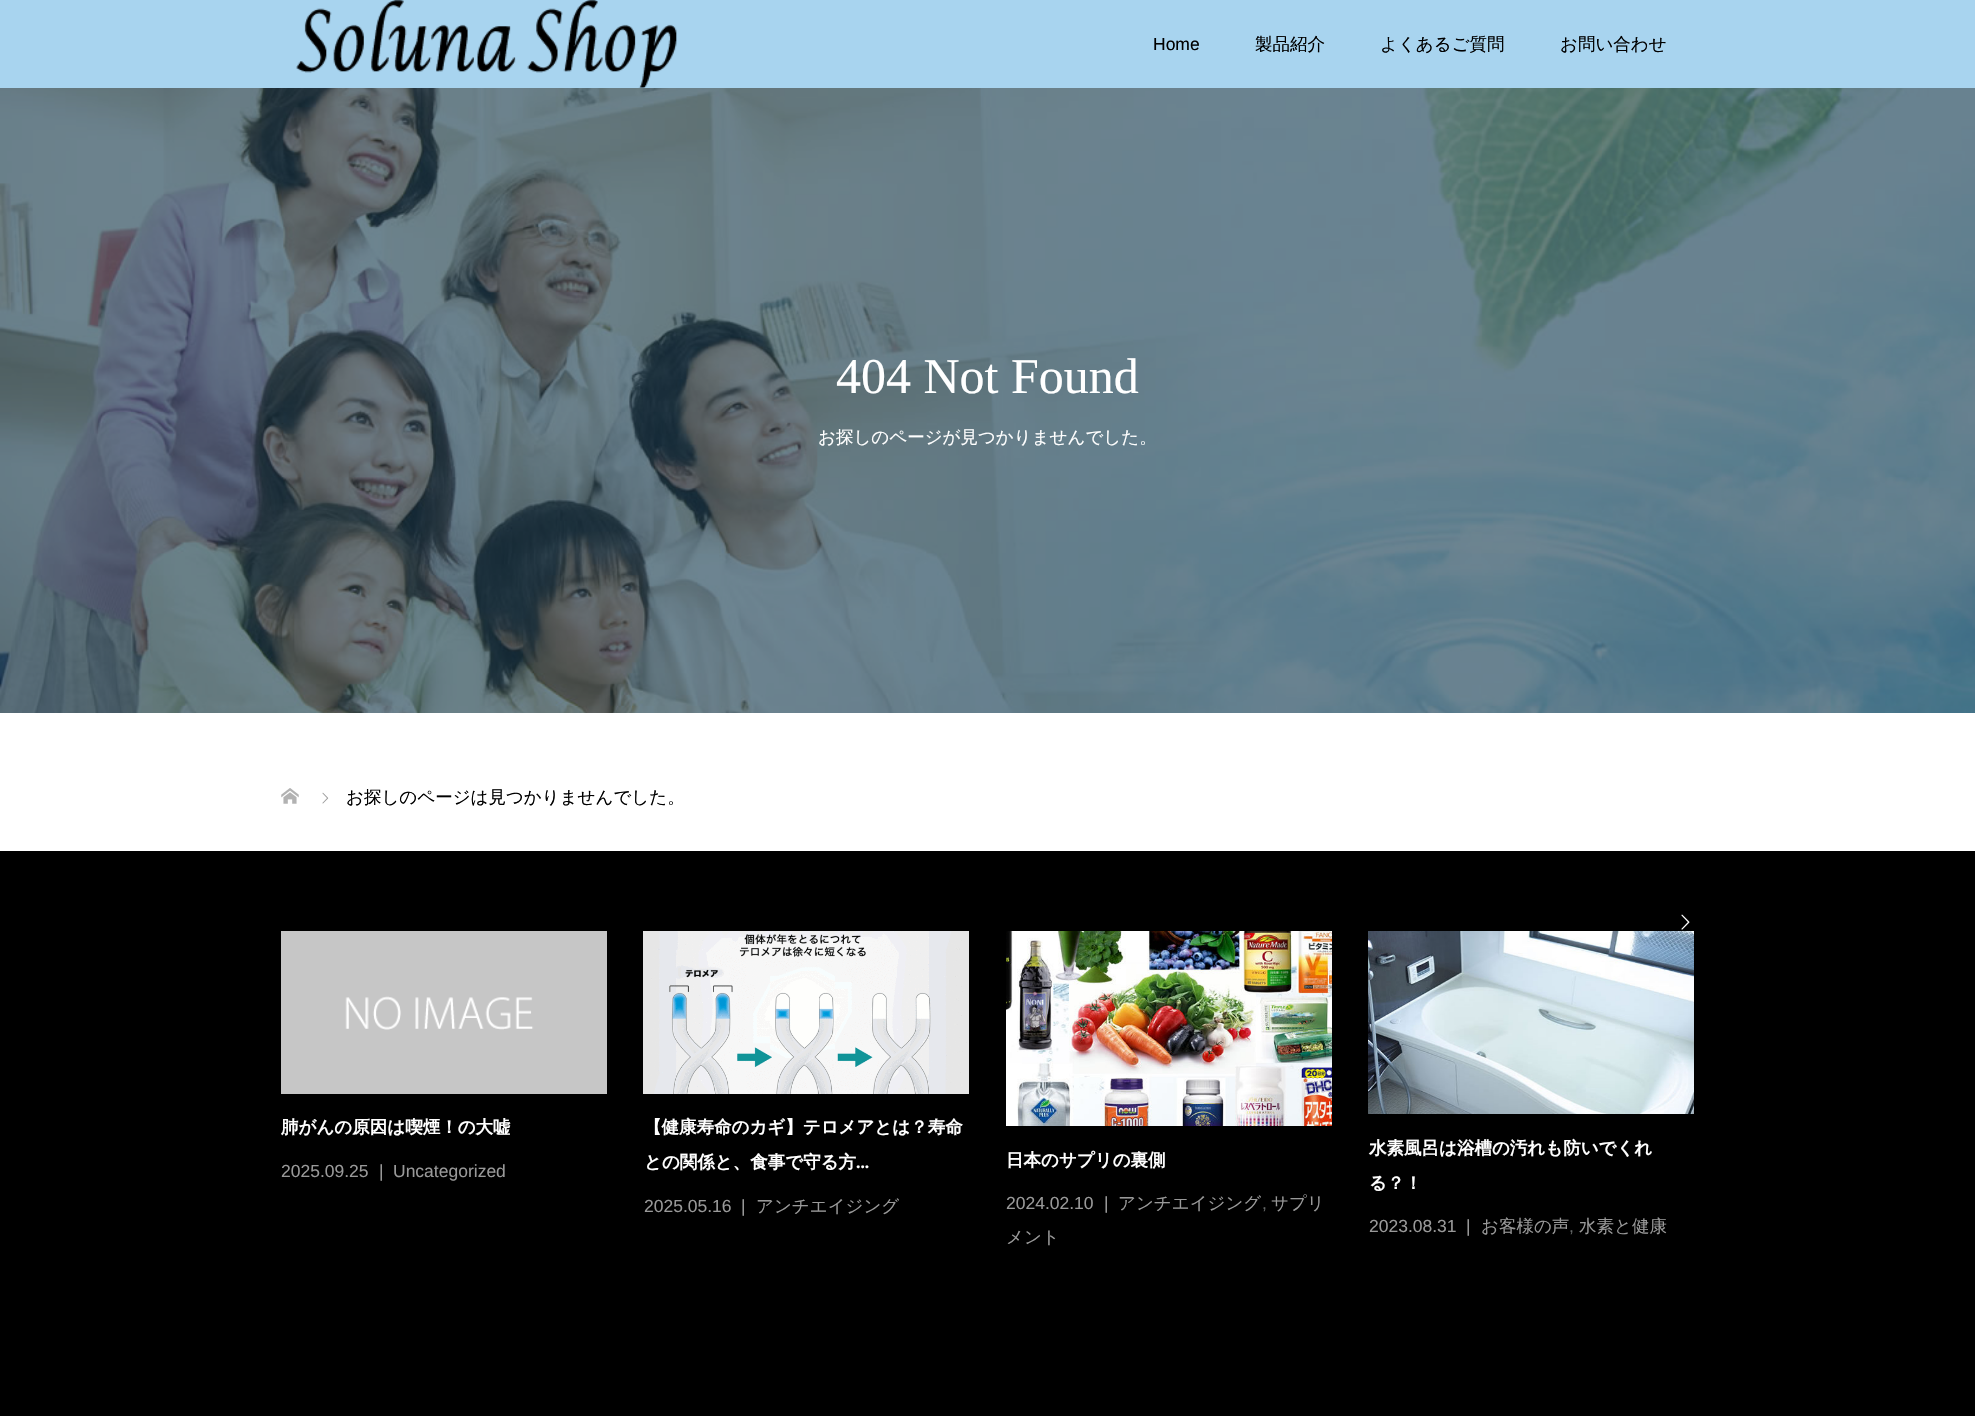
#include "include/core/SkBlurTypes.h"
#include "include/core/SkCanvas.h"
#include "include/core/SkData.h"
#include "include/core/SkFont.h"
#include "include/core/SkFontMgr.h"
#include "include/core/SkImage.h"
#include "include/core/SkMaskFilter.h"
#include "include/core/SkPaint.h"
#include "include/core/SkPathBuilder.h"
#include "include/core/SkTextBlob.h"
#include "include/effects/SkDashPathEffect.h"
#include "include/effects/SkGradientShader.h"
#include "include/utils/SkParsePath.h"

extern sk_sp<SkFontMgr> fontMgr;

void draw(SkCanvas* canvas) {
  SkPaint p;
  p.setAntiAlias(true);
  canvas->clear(SK_ColorWHITE);
  p.setColor(SkColorSetRGB(168, 212, 239));
  canvas->drawRect(SkRect::MakeLTRB(0, 0, 1975, 88), p);
  canvas->drawImageRect(SkImages::DeferredFromEncodedData(SkData::MakeFromFileName("images/1.png")), SkRect::MakeLTRB(296, 0, 677, 88), SkSamplingOptions());
  canvas->drawImageRect(SkImages::DeferredFromEncodedData(SkData::MakeFromFileName("images/2.png")), SkRect::MakeLTRB(0, 88, 1975, 713), SkSamplingOptions());
  canvas->drawImageRect(SkImages::DeferredFromEncodedData(SkData::MakeFromFileName("images/3.png")), SkRect::MakeLTRB(281, 788, 299, 804), SkSamplingOptions());
  canvas->drawImageRect(SkImages::DeferredFromEncodedData(SkData::MakeFromFileName("images/4.png")), SkRect::MakeLTRB(322, 792, 329, 804), SkSamplingOptions());
  p.setColor(SK_ColorBLACK);
  canvas->drawRect(SkRect::MakeLTRB(0, 851, 1975, 1416), p);
  canvas->drawImageRect(SkImages::DeferredFromEncodedData(SkData::MakeFromFileName("images/5.png")), SkRect::MakeLTRB(1681, 914, 1690, 930), SkSamplingOptions());
  canvas->drawImageRect(SkImages::DeferredFromEncodedData(SkData::MakeFromFileName("images/6.png")), SkRect::MakeLTRB(281, 931, 607, 1094), SkSamplingOptions());
  canvas->drawImageRect(SkImages::DeferredFromEncodedData(SkData::MakeFromFileName("images/7.png")), SkRect::MakeLTRB(643, 931, 969, 1094), SkSamplingOptions());
  canvas->drawImageRect(SkImages::DeferredFromEncodedData(SkData::MakeFromFileName("images/8.png")), SkRect::MakeLTRB(1006, 931, 1332, 1126), SkSamplingOptions());
  canvas->drawImageRect(SkImages::DeferredFromEncodedData(SkData::MakeFromFileName("images/9.png")), SkRect::MakeLTRB(1368, 931, 1694, 1114), SkSamplingOptions());
  SkFont font1(fontMgr->matchFamilyStyle("Liberation Sans", SkFontStyle::Normal()), 17.5f);
  font1.setSubpixel(true);
  canvas->drawString("Home", 1153, 50, font1, p);
  SkFont font2(fontMgr->matchFamilyStyle("WenQuanYi Zen Hei", SkFontStyle(500, SkFontStyle::kNormal_Width, SkFontStyle::kUpright_Slant)), 17.5f);
  font2.setSubpixel(true);
  canvas->drawString("製品紹介", 1255, 50, font2, p);
  canvas->drawString("よくあるご質問", 1380, 50, font2, p);
  canvas->drawString("お問い合わせ", 1560, 50, font2, p);
  SkFont font3(fontMgr->matchFamilyStyle("Liberation Serif", SkFontStyle::Normal()), 50);
  font3.setSubpixel(true);
  p.setColor(SK_ColorWHITE);
  canvas->drawString("404 Not Found", 836, 393, font3, p);
  canvas->drawString("お探しのページが見つかりませんでした。", 818, 443, font2, p);
  p.setColor(SK_ColorBLACK);
  canvas->drawString("お探しのページは見つかりませんでした。", 346, 803, font2, p);
  SkFont font4(fontMgr->matchFamilyStyle("WenQuanYi Zen Hei", SkFontStyle::Bold()), 17.5f);
  font4.setSubpixel(true);
  p.setColor(SK_ColorWHITE);
  canvas->drawString("肺がんの原因は喫煙！の大嘘", 281, 1133, font4, p);
  p.setColor(SkColorSetRGB(153, 153, 153));
  canvas->drawString("2025.09.25", 281, 1177, font1, p);
  canvas->drawString("|", 379, 1177, font1, p);
  canvas->drawString("Uncategorized", 393, 1177, font1, p);
  p.setColor(SK_ColorWHITE);
  canvas->drawString("【健康寿命のカギ】テロメアとは？寿命", 644, 1133, font4, p);
  canvas->drawString("との関係と、食事で守る方", 644, 1168, font4, p);
  SkFont font5(fontMgr->matchFamilyStyle("Liberation Serif", SkFontStyle::Bold()), 17.5f);
  font5.setSubpixel(true);
  canvas->drawString("...", 856, 1168, font5, p);
  p.setColor(SkColorSetRGB(153, 153, 153));
  canvas->drawString("2025.05.16", 644, 1212, font1, p);
  canvas->drawString("|", 741, 1212, font1, p);
  canvas->drawString("アンチエイジング", 756, 1212, font2, p);
  p.setColor(SK_ColorWHITE);
  canvas->drawString("日本のサプリの裏側", 1006, 1166, font4, p);
  p.setColor(SkColorSetRGB(153, 153, 153));
  canvas->drawString("|", 1104, 1209, font1, p);
  canvas->drawString("アンチエイジング", 1118, 1209, font2, p);
  p.setColor(SkColorSetRGB(100, 103, 103));
  canvas->drawString(",", 1262, 1209, font1, p);
  p.setColor(SkColorSetRGB(153, 153, 153));
  canvas->drawString("サプリ", 1271, 1209, font2, p);
  canvas->drawString("メント", 1006, 1243, font2, p);
  canvas->drawString("2024.02.10", 1006, 1209, font1, p);
  p.setColor(SK_ColorWHITE);
  canvas->drawString("水素風呂は浴槽の汚れも防いでくれ", 1369, 1154, font4, p);
  canvas->drawString("る？！", 1369, 1189, font4, p);
  p.setColor(SkColorSetRGB(153, 153, 153));
  canvas->drawString("2023.08.31", 1369, 1232, font1, p);
  canvas->drawString("|", 1466, 1232, font1, p);
  canvas->drawString("お客様の声", 1481, 1232, font2, p);
  p.setColor(SkColorSetRGB(100, 103, 103));
  canvas->drawString(",", 1569, 1232, font1, p);
  p.setColor(SkColorSetRGB(153, 153, 153));
  canvas->drawString("水素と健康", 1579, 1232, font2, p);
}
